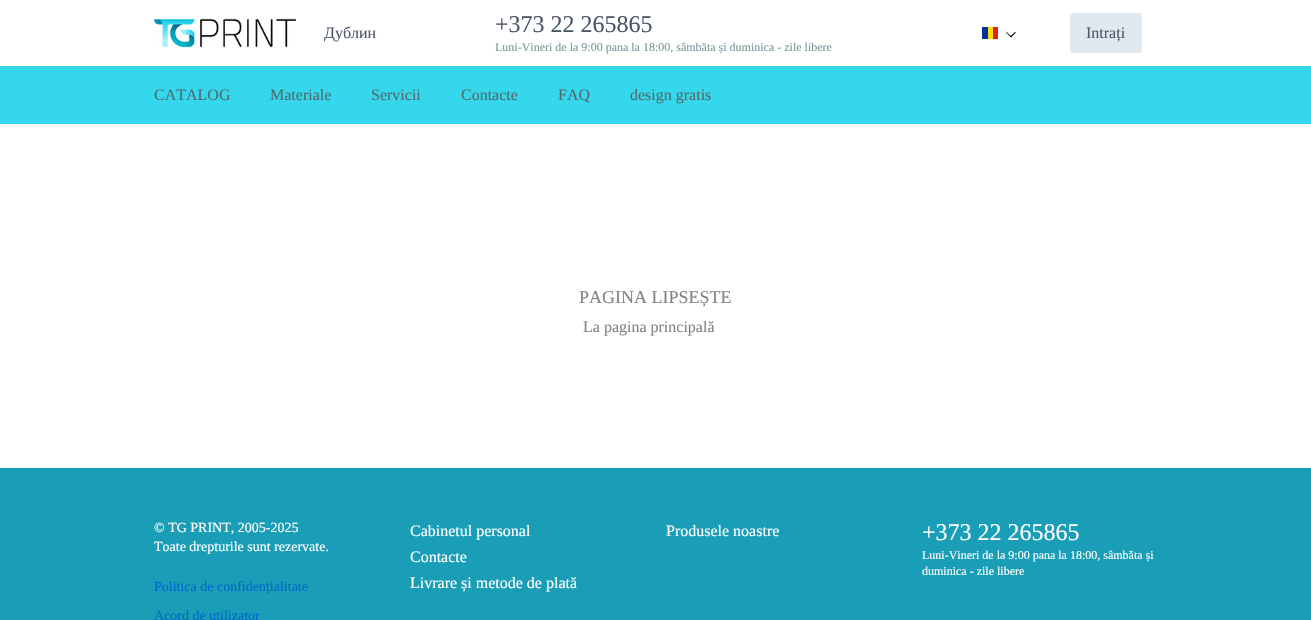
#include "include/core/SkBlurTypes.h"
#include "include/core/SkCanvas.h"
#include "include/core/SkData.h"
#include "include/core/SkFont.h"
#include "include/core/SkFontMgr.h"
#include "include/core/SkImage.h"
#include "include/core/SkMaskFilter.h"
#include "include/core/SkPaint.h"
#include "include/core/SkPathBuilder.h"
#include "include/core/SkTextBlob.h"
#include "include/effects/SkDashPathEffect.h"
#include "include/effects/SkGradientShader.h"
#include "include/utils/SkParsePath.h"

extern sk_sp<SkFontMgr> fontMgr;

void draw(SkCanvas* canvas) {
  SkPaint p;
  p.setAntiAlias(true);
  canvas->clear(SK_ColorWHITE);
  canvas->drawImageRect(SkImages::DeferredFromEncodedData(SkData::MakeFromFileName("images/1.png")), SkRect::MakeLTRB(154, 18, 296, 48), SkSamplingOptions());
  p.setColor(SkColorSetRGB(0, 49, 156));
  canvas->drawRect(SkRect::MakeLTRB(982, 27, 988, 39), p);
  p.setColor(SkColorSetRGB(255, 222, 0));
  canvas->drawRect(SkRect::MakeLTRB(988, 27, 993, 39), p);
  p.setColor(SkColorSetRGB(222, 33, 16));
  canvas->drawRect(SkRect::MakeLTRB(993, 27, 998, 39), p);
  p.setColor(SkColorSetRGB(22, 22, 22));
  canvas->drawPath(SkPathBuilder().moveTo(1015, 32).lineTo(1016, 32.5f).lineTo(1011, 37.5f).lineTo(1010, 36.5f).close().detach(), p);
  canvas->drawPath(SkPathBuilder().moveTo(1006.5f, 32).lineTo(1011.5f, 36.5f).lineTo(1011, 37.5f).lineTo(1006, 32.5f).close().detach(), p);
  p.setColor(SkColorSetRGB(226, 232, 240));
  canvas->drawRoundRect(SkRect::MakeLTRB(1070, 13, 1142, 53), 4, 4, p);
  p.setColor(SkColorSetRGB(52, 215, 236));
  canvas->drawRect(SkRect::MakeLTRB(0, 66, 1311, 124), p);
  p.setColor(SkColorSetRGB(237, 242, 247));
  canvas->drawRect(SkRect::MakeLTRB(0, 124, 1311, 125), p);
  p.setColor(SkColorSetRGB(26, 158, 184));
  canvas->drawRect(SkRect::MakeLTRB(0, 468, 1311, 620), p);
  SkFont font1(fontMgr->matchFamilyStyle("Liberation Serif", SkFontStyle::Normal()), 16);
  font1.setSubpixel(true);
  p.setColor(SkColorSetRGB(74, 85, 104));
  canvas->drawString("Дублин", 324, 38, font1, p);
  SkFont font2(fontMgr->matchFamilyStyle("Liberation Serif", SkFontStyle::Normal()), 24);
  font2.setSubpixel(true);
  canvas->drawString("+373 22 265865", 495, 32, font2, p);
  SkFont font3(fontMgr->matchFamilyStyle("Liberation Serif", SkFontStyle::Normal()), 12);
  font3.setSubpixel(true);
  p.setColor(SkColorSetRGB(122, 150, 155));
  canvas->drawString("Luni-Vineri de la 9:00 pana la 18:00, sâmbăta și duminica - zile libere", 495, 51, font3, p);
  p.setColor(SkColorSetRGB(74, 85, 104));
  canvas->drawString("Intrați", 1086, 38, font1, p);
  p.setColor(SkColorSetRGB(82, 105, 109));
  canvas->drawString("CATALOG", 154, 100, font1, p);
  canvas->drawString("Materiale", 270, 100, font1, p);
  canvas->drawString("Servicii", 371, 100, font1, p);
  canvas->drawString("Contacte", 461, 100, font1, p);
  canvas->drawString("FAQ", 558, 100, font1, p);
  canvas->drawString("design gratis", 630, 100, font1, p);
  SkFont font4(fontMgr->matchFamilyStyle("Liberation Serif", SkFontStyle::Normal()), 18);
  font4.setSubpixel(true);
  p.setColor(SkColorSetRGB(128, 130, 133));
  canvas->drawString("PAGINA LIPSEȘTE", 579, 303, font4, p);
  canvas->drawString("La pagina principală", 583, 332, font1, p);
  SkFont font5(fontMgr->matchFamilyStyle("Liberation Serif", SkFontStyle::Normal()), 14);
  font5.setSubpixel(true);
  p.setColor(SK_ColorWHITE);
  canvas->drawString("© TG PRINT, 2005-2025", 154, 532, font5, p);
  canvas->drawString("Toate drepturile sunt rezervate.", 154, 551, font5, p);
  p.setColor(SkColorSetRGB(0, 102, 204));
  canvas->drawString("Politica de confidențialitate", 154, 591, font5, p);
  canvas->drawString("Acord de utilizator", 154, 620, font5, p);
  p.setColor(SK_ColorWHITE);
  canvas->drawString("Cabinetul personal", 410, 536, font1, p);
  canvas->drawString("Contacte", 410, 562, font1, p);
  canvas->drawString("Livrare și metode de plată", 410, 588, font1, p);
  canvas->drawString("Produsele noastre", 666, 536, font1, p);
  canvas->drawString("+373 22 265865", 922, 540, font2, p);
  canvas->drawString("Luni-Vineri de la 9:00 pana la 18:00, sâmbăta și", 922, 559, font3, p);
  canvas->drawString("duminica - zile libere", 922, 575, font3, p);
}
